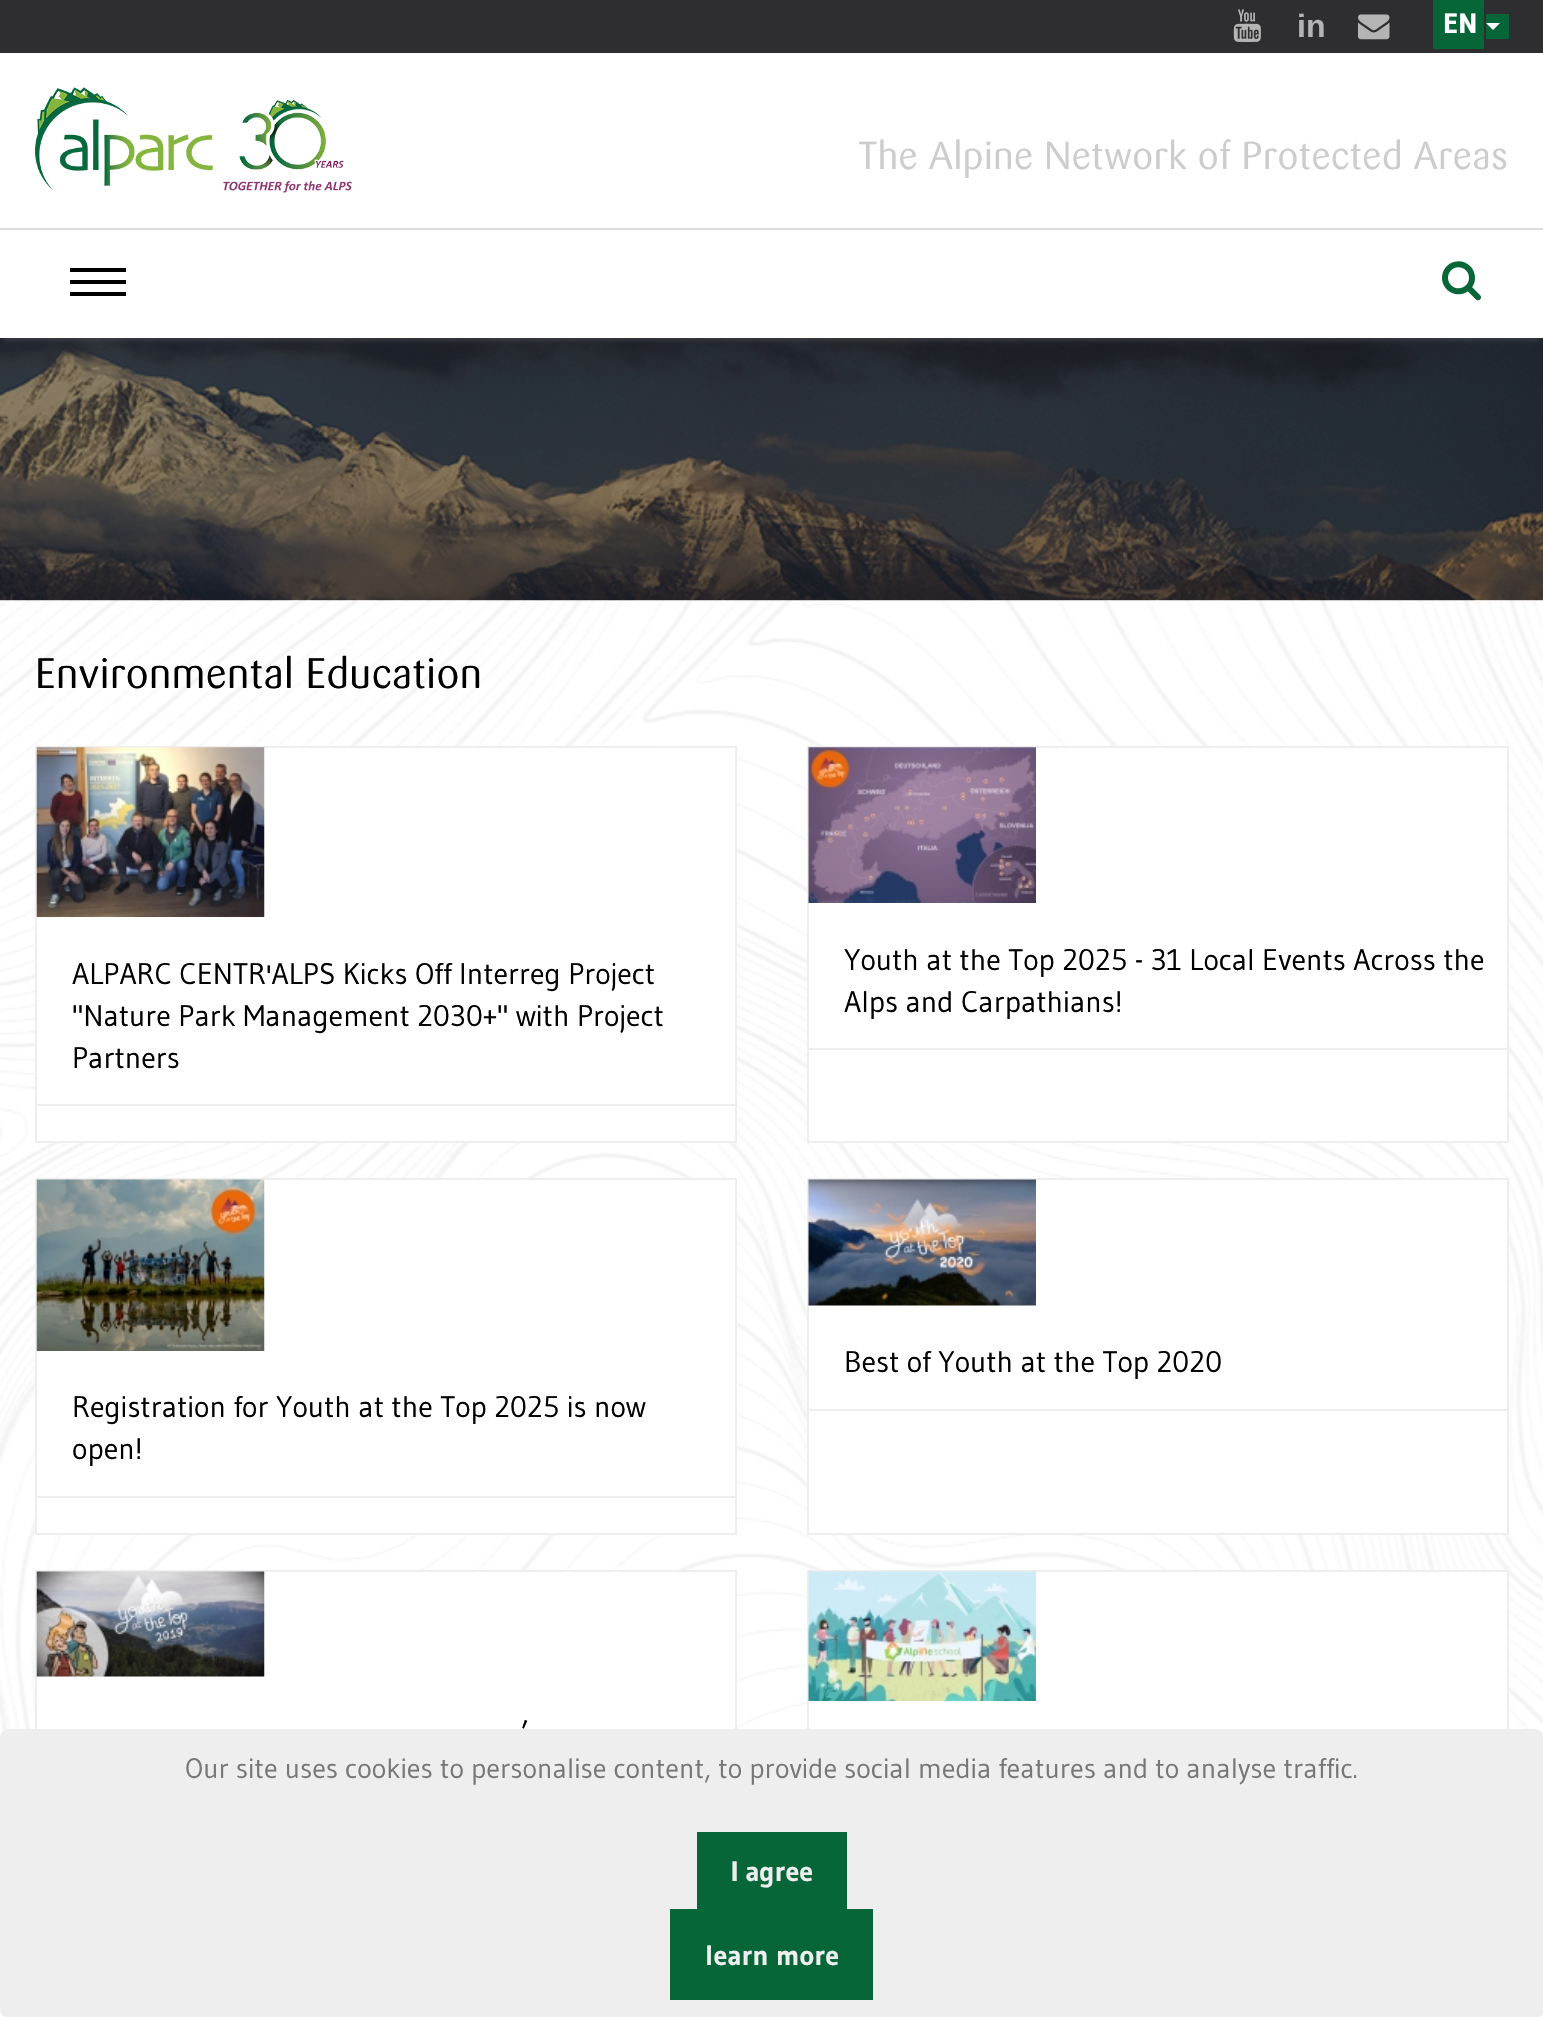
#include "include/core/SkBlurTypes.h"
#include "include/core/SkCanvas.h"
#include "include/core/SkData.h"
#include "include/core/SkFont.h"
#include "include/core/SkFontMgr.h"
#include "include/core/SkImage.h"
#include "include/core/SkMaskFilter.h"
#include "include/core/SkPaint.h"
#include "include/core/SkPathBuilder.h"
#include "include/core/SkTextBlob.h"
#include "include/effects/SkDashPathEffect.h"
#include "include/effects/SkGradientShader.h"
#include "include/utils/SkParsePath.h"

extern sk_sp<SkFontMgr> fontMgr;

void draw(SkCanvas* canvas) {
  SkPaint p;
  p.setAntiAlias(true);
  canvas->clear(SK_ColorWHITE);
  canvas->drawImageRect(SkImages::DeferredFromEncodedData(SkData::MakeFromFileName("images/1.png")), SkRect::MakeLTRB(0, 600, 1543, 2017), SkSamplingOptions());
  p.setColor(SkColorSetRGB(46, 46, 48));
  canvas->drawRect(SkRect::MakeLTRB(0, 0, 1543, 53), p);
  canvas->drawImageRect(SkImages::DeferredFromEncodedData(SkData::MakeFromFileName("images/2.png")), SkRect::MakeLTRB(1233, 9, 1261, 42), SkSamplingOptions());
  canvas->drawImageRect(SkImages::DeferredFromEncodedData(SkData::MakeFromFileName("images/3.png")), SkRect::MakeLTRB(1358, 14, 1390, 40), SkSamplingOptions());
  p.setColor(SkColorSetRGB(6, 102, 56));
  canvas->drawRect(SkRect::MakeLTRB(1433, 0, 1484, 49), p);
  canvas->drawRect(SkRect::MakeLTRB(1486, 14, 1509, 39), p);
  p.setColor(SK_ColorWHITE);
  canvas->drawPath(SkPathBuilder().moveTo(1486, 23).lineTo(1500, 23).lineTo(1493, 30).close().detach(), p);
  canvas->drawImageRect(SkImages::DeferredFromEncodedData(SkData::MakeFromFileName("images/4.png")), SkRect::MakeLTRB(35, 87, 352, 193), SkSamplingOptions());
  canvas->drawImageRect(SkImages::DeferredFromEncodedData(SkData::MakeFromFileName("images/6.png")), SkRect::MakeLTRB(0, 338, 1543, 601), SkSamplingOptions());
  canvas->save();
  canvas->clipPath(SkPathBuilder(SkPathFillType::kEvenOdd).moveTo(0, 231).lineTo(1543, 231).lineTo(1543, 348).lineTo(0, 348).close().moveTo(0, 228).lineTo(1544, 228).lineTo(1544, 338).lineTo(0, 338).close().detach(), true);
  p.setColor(SkColorSetARGB(77, 107, 107, 107));
  p.setMaskFilter(SkMaskFilter::MakeBlur(kNormal_SkBlurStyle, 2));
  canvas->drawRect(SkRect::MakeLTRB(4, 238, 1540, 341), p);
  p.setMaskFilter(nullptr);
  canvas->restore();
  p.setColor(SkColorSetRGB(218, 218, 218));
  canvas->drawRect(SkRect::MakeLTRB(0, 228, 1543, 230), p);
  p.setColor(SK_ColorBLACK);
  canvas->drawRect(SkRect::MakeLTRB(70, 280, 126, 284), p);
  canvas->drawRect(SkRect::MakeLTRB(70, 268, 126, 272), p);
  canvas->drawRect(SkRect::MakeLTRB(70, 292, 126, 296), p);
  canvas->drawImageRect(SkImages::DeferredFromEncodedData(SkData::MakeFromFileName("images/5.png")), SkRect::MakeLTRB(1442, 261, 1481, 301), SkSamplingOptions());
  p.setColor(SK_ColorWHITE);
  canvas->drawRect(SkRect::MakeLTRB(36, 747, 736, 1142), p);
  p.setStyle(SkPaint::kStroke_Style);
  p.setStrokeWidth(2);
  p.setColor(SkColorSetRGB(238, 238, 238));
  canvas->drawRect(SkRect::MakeLTRB(36, 747, 736, 1142), p);
  p.setStyle(SkPaint::kFill_Style);
  canvas->drawRect(SkRect::MakeLTRB(37, 1104, 735, 1106), p);
  canvas->drawImageRect(SkImages::DeferredFromEncodedData(SkData::MakeFromFileName("images/7.png")), SkRect::MakeLTRB(36, 747, 265, 917), SkSamplingOptions());
  p.setColor(SK_ColorWHITE);
  canvas->drawRect(SkRect::MakeLTRB(808, 747, 1508, 1142), p);
  p.setStyle(SkPaint::kStroke_Style);
  p.setColor(SkColorSetRGB(238, 238, 238));
  canvas->drawRect(SkRect::MakeLTRB(808, 747, 1508, 1142), p);
  p.setStyle(SkPaint::kFill_Style);
  canvas->drawRect(SkRect::MakeLTRB(809, 1048, 1507, 1050), p);
  canvas->drawImageRect(SkImages::DeferredFromEncodedData(SkData::MakeFromFileName("images/8.png")), SkRect::MakeLTRB(808, 747, 1036, 903), SkSamplingOptions());
  p.setColor(SK_ColorWHITE);
  canvas->drawRect(SkRect::MakeLTRB(808, 1179, 1508, 1534), p);
  p.setStyle(SkPaint::kStroke_Style);
  p.setColor(SkColorSetRGB(238, 238, 238));
  canvas->drawRect(SkRect::MakeLTRB(808, 1179, 1508, 1534), p);
  p.setStyle(SkPaint::kFill_Style);
  canvas->drawRect(SkRect::MakeLTRB(809, 1409, 1507, 1411), p);
  canvas->drawImageRect(SkImages::DeferredFromEncodedData(SkData::MakeFromFileName("images/9.png")), SkRect::MakeLTRB(808, 1179, 1036, 1306), SkSamplingOptions());
  p.setColor(SK_ColorWHITE);
  canvas->drawRect(SkRect::MakeLTRB(36, 1179, 736, 1534), p);
  p.setStyle(SkPaint::kStroke_Style);
  p.setColor(SkColorSetRGB(238, 238, 238));
  canvas->drawRect(SkRect::MakeLTRB(36, 1179, 736, 1534), p);
  p.setStyle(SkPaint::kFill_Style);
  canvas->drawRect(SkRect::MakeLTRB(37, 1496, 735, 1498), p);
  canvas->drawImageRect(SkImages::DeferredFromEncodedData(SkData::MakeFromFileName("images/10.png")), SkRect::MakeLTRB(36, 1179, 265, 1351), SkSamplingOptions());
  p.setColor(SK_ColorWHITE);
  canvas->drawRect(SkRect::MakeLTRB(37, 1572, 735, 1729), p);
  p.setStyle(SkPaint::kStroke_Style);
  p.setColor(SkColorSetRGB(238, 238, 238));
  canvas->drawRect(SkRect::MakeLTRB(36, 1571, 736, 1926), p);
  canvas->drawImageRect(SkImages::DeferredFromEncodedData(SkData::MakeFromFileName("images/11.png")), SkRect::MakeLTRB(36, 1571, 265, 1677), SkSamplingOptions());
  p.setStyle(SkPaint::kFill_Style);
  p.setColor(SK_ColorWHITE);
  canvas->drawRect(SkRect::MakeLTRB(809, 1572, 1507, 1729), p);
  p.setStyle(SkPaint::kStroke_Style);
  p.setColor(SkColorSetRGB(238, 238, 238));
  canvas->drawRect(SkRect::MakeLTRB(808, 1571, 1508, 1926), p);
  canvas->drawImageRect(SkImages::DeferredFromEncodedData(SkData::MakeFromFileName("images/12.png")), SkRect::MakeLTRB(808, 1571, 1036, 1701), SkSamplingOptions());
  p.setStyle(SkPaint::kFill_Style);
  canvas->drawRoundRect(SkRect::MakeLTRB(0, 1729, 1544, 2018), 9, 9, p);
  p.setColor(SkColorSetRGB(6, 102, 56));
  canvas->drawRect(SkRect::MakeLTRB(697, 1832, 847, 1909), p);
  canvas->drawRect(SkRect::MakeLTRB(670, 1909, 873, 2000), p);
  SkFont font1(fontMgr->matchFamilyStyle("Liberation Sans", SkFontStyle::Bold()), 32);
  font1.setSubpixel(true);
  p.setColor(SkColorSetRGB(180, 180, 180));
  canvas->drawString("in", 1297, 37, font1, p);
  SkFont font2(fontMgr->matchFamilyStyle("Gudea", SkFontStyle::Bold()), 28);
  font2.setSubpixel(true);
  p.setColor(SK_ColorWHITE);
  canvas->drawString("EN", 1443, 33, font2, p);
  SkFont font3(fontMgr->matchFamilyStyle("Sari", SkFontStyle::Normal()), 38.5f);
  font3.setSubpixel(true);
  p.setColor(SkColorSetRGB(204, 204, 204));
  canvas->drawString("The Alpine Network of Protected Areas", 858, 169, font3, p);
  SkFont font4(fontMgr->matchFamilyStyle("Sari", SkFontStyle::Normal()), 42);
  font4.setSubpixel(true);
  p.setColor(SK_ColorBLACK);
  canvas->drawString("Environmental Education", 35, 688, font4, p);
  SkFont font5(fontMgr->matchFamilyStyle("Gudea", SkFontStyle::Normal()), 29.75f);
  font5.setSubpixel(true);
  canvas->drawString("ALPARC CENTR'ALPS Kicks Off Interreg Project", 72, 984, font5, p);
  canvas->drawString("\"Nature Park Management 2030+\" with Project", 72, 1026, font5, p);
  canvas->drawString("Partners", 72, 1068, font5, p);
  canvas->drawString("Youth at the Top 2025 - 31 Local Events Across the", 844, 970, font5, p);
  canvas->drawString("Alps and Carpathians!", 844, 1012, font5, p);
  canvas->drawString("Best of Youth at the Top 2020", 844, 1372, font5, p);
  canvas->drawString("Registration for Youth at the Top 2025 is now", 72, 1417, font5, p);
  canvas->drawString("open!", 72, 1459, font5, p);
  canvas->drawString("’", 521, 1743, font5, p);
  SkFont font6(fontMgr->matchFamilyStyle("Gudea", SkFontStyle::Normal()), 28);
  font6.setSubpixel(true);
  p.setColor(SkColorSetRGB(119, 119, 119));
  canvas->drawString("Our site uses cookies to personalise content, to provide social media features and to analyse traffic.", 185, 1778, font6, p);
  p.setColor(SkColorSetRGB(238, 238, 238));
  canvas->drawString("I agree", 731, 1881, font2, p);
  canvas->drawString("learn more", 705, 1965, font2, p);
}
